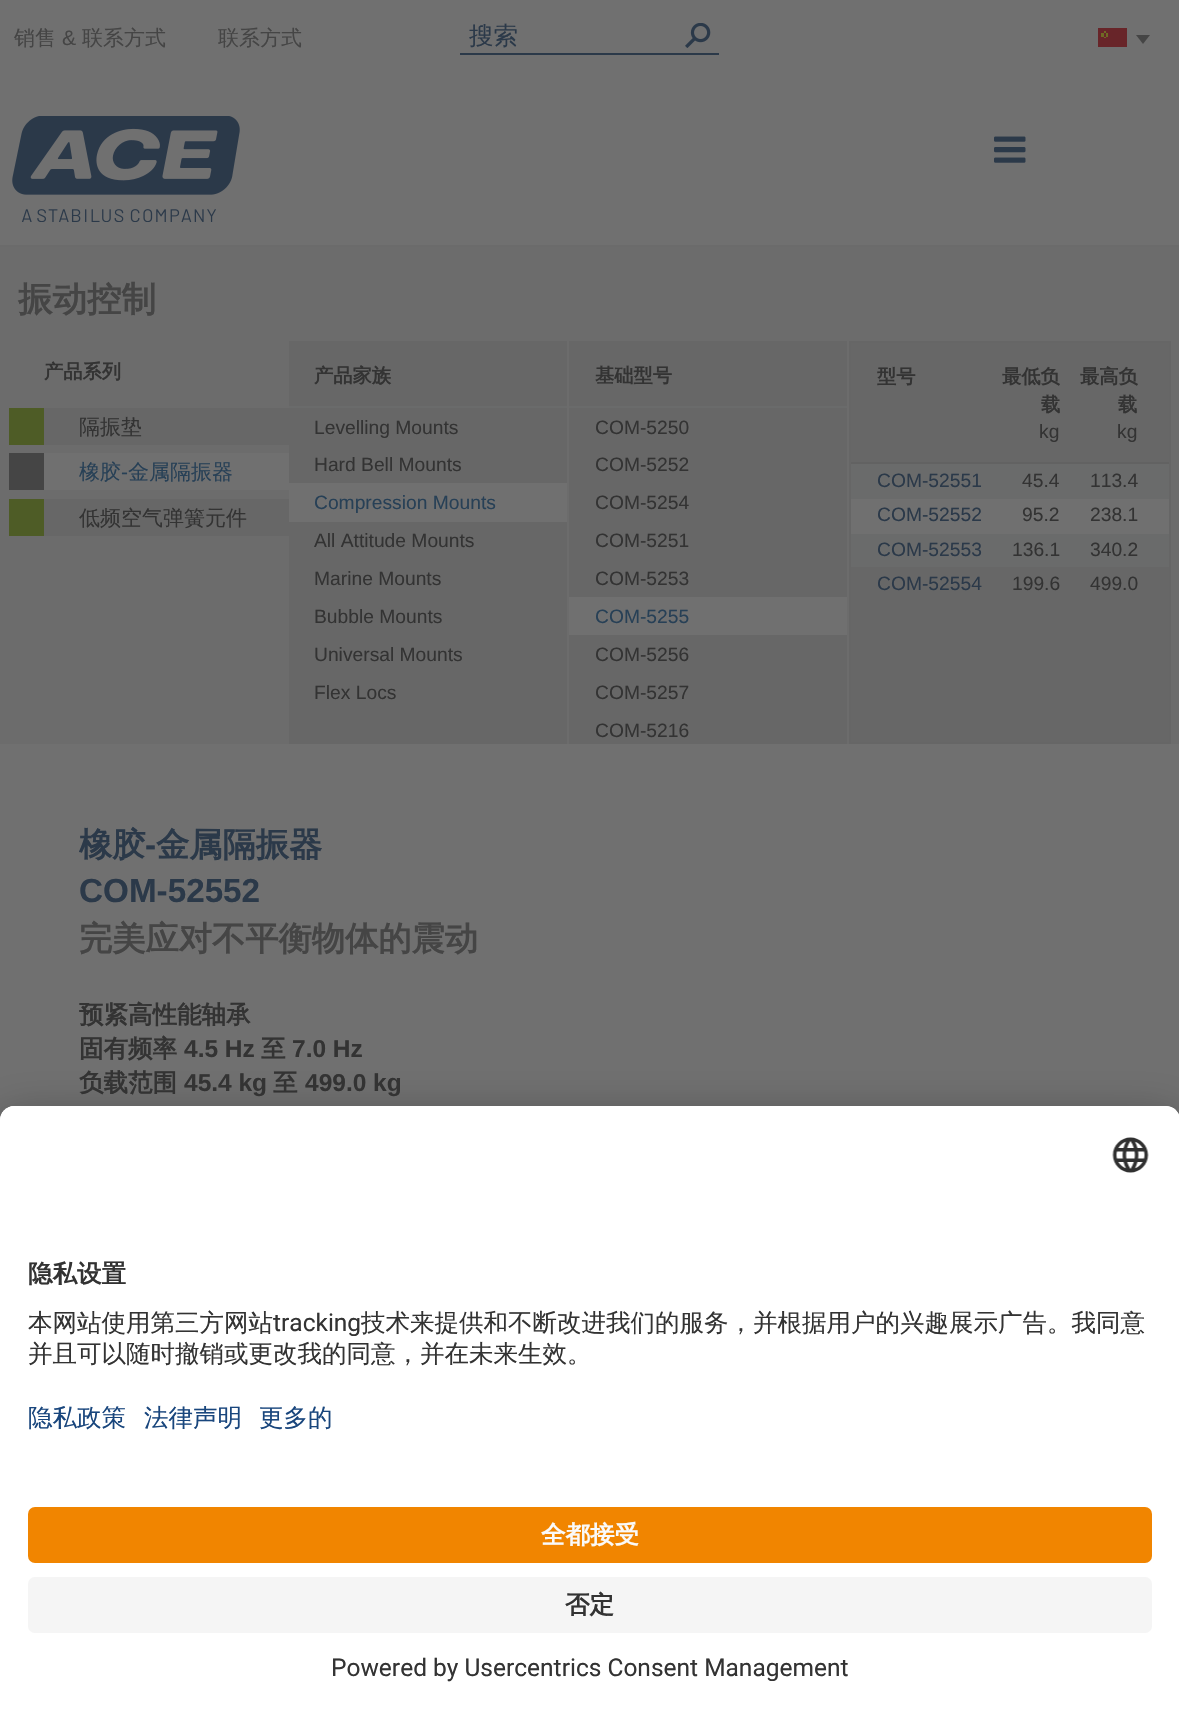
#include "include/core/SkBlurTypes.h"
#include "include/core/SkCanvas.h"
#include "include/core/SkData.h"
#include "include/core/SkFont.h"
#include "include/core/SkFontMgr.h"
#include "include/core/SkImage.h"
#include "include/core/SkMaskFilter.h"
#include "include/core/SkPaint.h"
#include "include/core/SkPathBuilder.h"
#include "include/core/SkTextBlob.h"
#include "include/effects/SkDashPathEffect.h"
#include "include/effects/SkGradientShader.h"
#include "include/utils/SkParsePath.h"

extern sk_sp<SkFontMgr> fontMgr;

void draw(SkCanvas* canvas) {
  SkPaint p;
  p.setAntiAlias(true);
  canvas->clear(SkColorSetRGB(112, 112, 112));
  p.setColor(SkColorSetRGB(107, 107, 107));
  canvas->drawRect(SkRect::MakeLTRB(0, 245, 1179, 247), p);
  p.setColor(SkColorSetRGB(43, 57, 73));
  canvas->drawRect(SkRect::MakeLTRB(460, 53, 719, 55), p);
  canvas->drawImageRect(SkImages::DeferredFromEncodedData(SkData::MakeFromFileName("images/1.png")), SkRect::MakeLTRB(685, 23, 711, 48), SkSamplingOptions());
  p.setColor(SkColorSetRGB(104, 37, 41));
  canvas->drawRect(SkRect::MakeLTRB(1098, 28, 1127, 47), p);
  p.setColor(SkColorSetRGB(112, 107, 36));
  canvas->drawRect(SkRect::MakeLTRB(1101, 33, 1104, 37), p);
  canvas->drawRect(SkRect::MakeLTRB(1106, 33, 1108, 37), p);
  canvas->drawRect(SkRect::MakeLTRB(1104, 31, 1106, 33), p);
  canvas->drawRect(SkRect::MakeLTRB(1104, 37, 1106, 38), p);
  p.setColor(SkColorSetRGB(69, 69, 69));
  canvas->drawPath(SkPathBuilder().moveTo(1136, 35).lineTo(1150, 35).lineTo(1143, 44).close().detach(), p);
  canvas->drawImageRect(SkImages::DeferredFromEncodedData(SkData::MakeFromFileName("images/2.png")), SkRect::MakeLTRB(12, 116, 240, 222), SkSamplingOptions());
  canvas->drawImageRect(SkImages::DeferredFromEncodedData(SkData::MakeFromFileName("images/3.png")), SkRect::MakeLTRB(994, 136, 1026, 163), SkSamplingOptions());
  p.setColor(SkColorSetRGB(108, 108, 108));
  canvas->drawRect(SkRect::MakeLTRB(0, 247, 1179, 744), p);
  p.setColor(SkColorSetRGB(103, 103, 103));
  canvas->drawRect(SkRect::MakeLTRB(44, 408, 289, 445), p);
  p.setColor(SkColorSetRGB(78, 92, 38));
  canvas->drawRect(SkRect::MakeLTRB(9, 408, 44, 445), p);
  p.setColor(SkColorSetRGB(112, 112, 112));
  canvas->drawRect(SkRect::MakeLTRB(44, 453, 289, 490), p);
  p.setColor(SkColorSetRGB(69, 69, 69));
  canvas->drawRect(SkRect::MakeLTRB(9, 453, 44, 490), p);
  p.setColor(SkColorSetRGB(103, 103, 103));
  canvas->drawRect(SkRect::MakeLTRB(44, 499, 289, 536), p);
  p.setColor(SkColorSetRGB(78, 92, 38));
  canvas->drawRect(SkRect::MakeLTRB(9, 499, 44, 536), p);
  p.setColor(SkColorSetRGB(103, 103, 103));
  canvas->drawRect(SkRect::MakeLTRB(289, 341, 567, 744), p);
  p.setColor(SkColorSetRGB(106, 107, 107));
  canvas->drawRect(SkRect::MakeLTRB(289, 406, 567, 408), p);
  p.setColor(SkColorSetRGB(112, 112, 112));
  canvas->drawRect(SkRect::MakeLTRB(289, 483, 567, 522), p);
  p.setColor(SkColorSetRGB(103, 103, 103));
  canvas->drawRect(SkRect::MakeLTRB(569, 341, 847, 744), p);
  p.setColor(SkColorSetRGB(106, 107, 107));
  canvas->drawRect(SkRect::MakeLTRB(569, 406, 847, 408), p);
  p.setColor(SkColorSetRGB(112, 112, 112));
  canvas->drawRect(SkRect::MakeLTRB(569, 597, 847, 635), p);
  p.setColor(SkColorSetRGB(103, 103, 103));
  canvas->drawRect(SkRect::MakeLTRB(850, 342, 1170, 743), p);
  p.setStyle(SkPaint::kStroke_Style);
  p.setStrokeWidth(2);
  p.setColor(SkColorSetRGB(102, 102, 102));
  canvas->drawRect(SkRect::MakeLTRB(850, 342, 1170, 743), p);
  p.setStyle(SkPaint::kFill_Style);
  p.setColor(SkColorSetRGB(98, 98, 98));
  canvas->drawRect(SkRect::MakeLTRB(851, 462, 1169, 464), p);
  p.setColor(SkColorSetRGB(106, 107, 107));
  canvas->drawRect(SkRect::MakeLTRB(851, 464, 1169, 499), p);
  p.setColor(SkColorSetRGB(112, 112, 112));
  canvas->drawRect(SkRect::MakeLTRB(851, 499, 1169, 534), p);
  p.setColor(SkColorSetRGB(106, 107, 107));
  canvas->drawRect(SkRect::MakeLTRB(851, 534, 1169, 567), p);
  p.setColor(SkColorSetARGB(77, 0, 0, 0));
  p.setMaskFilter(SkMaskFilter::MakeBlur(kNormal_SkBlurStyle, 24.5f));
  canvas->drawRoundRect(SkRect::MakeLTRB(0, 1141, 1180, 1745), 14, 14, p);
  p.setMaskFilter(nullptr);
  p.setColor(SkColorSetARGB(56, 0, 0, 0));
  p.setMaskFilter(SkMaskFilter::MakeBlur(kNormal_SkBlurStyle, 23));
  canvas->drawRoundRect(SkRect::MakeLTRB(0, 1115, 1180, 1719), 14, 14, p);
  p.setMaskFilter(nullptr);
  p.setColor(SK_ColorWHITE);
  canvas->drawPath(SkPathBuilder().moveTo(14, 1106).lineTo(1166, 1106).cubicTo(1173.5f, 1106, 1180, 1112.5f, 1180, 1120).lineTo(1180, 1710).lineTo(0, 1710).lineTo(0, 1120).cubicTo(0, 1112.5f, 6.5f, 1106, 14, 1106).close().detach(), p);
  canvas->drawPath(SkPathBuilder().moveTo(14, 1106).lineTo(1166, 1106).cubicTo(1173.5f, 1106, 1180, 1112.5f, 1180, 1120).lineTo(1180, 1486).lineTo(0, 1486).lineTo(0, 1120).cubicTo(0, 1112.5f, 6.5f, 1106, 14, 1106).close().detach(), p);
  canvas->drawImageRect(SkImages::DeferredFromEncodedData(SkData::MakeFromFileName("images/4.png")), SkRect::MakeLTRB(1112, 1137, 1149, 1173), SkSamplingOptions());
  p.setColor(SkColorSetRGB(241, 133, 0));
  canvas->drawRoundRect(SkRect::MakeLTRB(28, 1507, 1152, 1563), 7, 7, p);
  p.setColor(SkColorSetRGB(245, 245, 245));
  canvas->drawRoundRect(SkRect::MakeLTRB(28, 1577, 1152, 1633), 7, 7, p);
  SkFont font1(fontMgr->matchFamilyStyle("WenQuanYi Zen Hei", SkFontStyle(500, SkFontStyle::kNormal_Width, SkFontStyle::kUpright_Slant)), 21);
  font1.setSubpixel(true);
  p.setColor(SkColorSetRGB(69, 69, 69));
  canvas->drawString("销售", 14, 45, font1, p);
  SkFont font2(fontMgr->matchFamilyStyle("Liberation Sans", SkFontStyle::Normal()), 21);
  font2.setSubpixel(true);
  canvas->drawString("&", 62, 45, font2, p);
  canvas->drawString("联系方式", 82, 45, font1, p);
  canvas->drawString("联系方式", 218, 45, font1, p);
  SkFont font3(fontMgr->matchFamilyStyle("WenQuanYi Zen Hei", SkFontStyle(500, SkFontStyle::kNormal_Width, SkFontStyle::kUpright_Slant)), 24.5f);
  font3.setSubpixel(true);
  p.setColor(SkColorSetRGB(43, 57, 73));
  canvas->drawString("搜索", 469, 44, font3, p);
  SkFont font4(fontMgr->matchFamilyStyle("WenQuanYi Zen Hei", SkFontStyle::Bold()), 34.5f);
  font4.setSubpixel(true);
  p.setColor(SkColorSetRGB(69, 69, 69));
  canvas->drawString("振动控制", 18, 311, font4, p);
  SkFont font5(fontMgr->matchFamilyStyle("WenQuanYi Zen Hei", SkFontStyle::Bold()), 19.25f);
  font5.setSubpixel(true);
  p.setColor(SkColorSetRGB(51, 51, 51));
  canvas->drawString("产品系列", 44, 378, font5, p);
  canvas->drawString("隔振垫", 79, 434, font1, p);
  p.setColor(SkColorSetRGB(39, 64, 86));
  canvas->drawString("橡胶", 79, 479, font1, p);
  canvas->drawString("-", 121, 479, font2, p);
  canvas->drawString("金属隔振器", 128, 479, font1, p);
  p.setColor(SkColorSetRGB(51, 51, 51));
  canvas->drawString("低频空气弹簧元件", 79, 525, font1, p);
  canvas->drawString("产品家族", 314, 382, font5, p);
  SkFont font6(fontMgr->matchFamilyStyle("Liberation Sans", SkFontStyle::Normal()), 19.25f);
  font6.setSubpixel(true);
  canvas->drawString("Levelling Mounts", 314, 434, font6, p);
  canvas->drawString("Hard Bell Mounts", 314, 471, font6, p);
  p.setColor(SkColorSetRGB(39, 64, 86));
  canvas->drawString("Compression Mounts", 314, 509, font6, p);
  p.setColor(SkColorSetRGB(51, 51, 51));
  canvas->drawString("All Attitude Mounts", 314, 547, font6, p);
  canvas->drawString("Marine Mounts", 314, 585, font6, p);
  canvas->drawString("Bubble Mounts", 314, 623, font6, p);
  canvas->drawString("Universal Mounts", 314, 661, font6, p);
  canvas->drawString("Flex Locs", 314, 699, font6, p);
  canvas->drawString("基础型号", 595, 382, font5, p);
  canvas->drawString("COM-5250", 595, 434, font6, p);
  canvas->drawString("COM-5252", 595, 471, font6, p);
  canvas->drawString("COM-5254", 595, 509, font6, p);
  canvas->drawString("COM-5251", 595, 547, font6, p);
  canvas->drawString("COM-5253", 595, 585, font6, p);
  p.setColor(SkColorSetRGB(39, 64, 86));
  canvas->drawString("COM-5255", 595, 623, font6, p);
  p.setColor(SkColorSetRGB(51, 51, 51));
  canvas->drawString("COM-5256", 595, 661, font6, p);
  canvas->drawString("COM-5257", 595, 699, font6, p);
  canvas->drawString("COM-5216", 595, 737, font6, p);
  canvas->drawString("型号", 877, 383, font5, p);
  canvas->drawString("最低负", 1002, 383, font5, p);
  canvas->drawString("载", 1041, 411, font5, p);
  canvas->drawString("kg", 1039, 438, font6, p);
  canvas->drawString("最高负", 1080, 383, font5, p);
  canvas->drawString("载", 1118, 411, font5, p);
  canvas->drawString("kg", 1117, 438, font6, p);
  p.setColor(SkColorSetRGB(43, 57, 73));
  canvas->drawString("COM-52551", 877, 487, font6, p);
  p.setColor(SkColorSetRGB(51, 51, 51));
  canvas->drawString("45.4", 1022, 487, font6, p);
  canvas->drawString("113.4", 1090, 487, font6, p);
  p.setColor(SkColorSetRGB(43, 57, 73));
  canvas->drawString("COM-52552", 877, 521, font6, p);
  p.setColor(SkColorSetRGB(51, 51, 51));
  canvas->drawString("95.2", 1022, 521, font6, p);
  canvas->drawString("238.1", 1090, 521, font6, p);
  p.setColor(SkColorSetRGB(43, 57, 73));
  canvas->drawString("COM-52553", 877, 556, font6, p);
  p.setColor(SkColorSetRGB(51, 51, 51));
  canvas->drawString("136.1", 1012, 556, font6, p);
  canvas->drawString("340.2", 1090, 556, font6, p);
  p.setColor(SkColorSetRGB(43, 57, 73));
  canvas->drawString("COM-52554", 877, 590, font6, p);
  p.setColor(SkColorSetRGB(51, 51, 51));
  canvas->drawString("199.6", 1012, 590, font6, p);
  canvas->drawString("499.0", 1090, 590, font6, p);
  SkFont font7(fontMgr->matchFamilyStyle("WenQuanYi Zen Hei", SkFontStyle::Bold()), 33.25f);
  font7.setSubpixel(true);
  p.setColor(SkColorSetRGB(43, 57, 73));
  canvas->drawString("橡胶", 79, 856, font7, p);
  SkFont font8(fontMgr->matchFamilyStyle("Liberation Sans", SkFontStyle::Bold()), 33.25f);
  font8.setSubpixel(true);
  canvas->drawString("-", 145, 856, font8, p);
  canvas->drawString("金属隔振器", 156, 856, font7, p);
  canvas->drawString("COM-52552", 79, 902, font8, p);
  p.setColor(SkColorSetRGB(69, 69, 69));
  canvas->drawString("完美应对不平衡物体的震动", 79, 950, font7, p);
  SkFont font9(fontMgr->matchFamilyStyle("WenQuanYi Zen Hei", SkFontStyle::Bold()), 24.5f);
  font9.setSubpixel(true);
  p.setColor(SkColorSetRGB(51, 51, 51));
  canvas->drawString("预紧高性能轴承", 79, 1023, font9, p);
  canvas->drawString("固有频率", 79, 1057, font9, p);
  SkFont font10(fontMgr->matchFamilyStyle("Liberation Sans", SkFontStyle::Bold()), 24.5f);
  font10.setSubpixel(true);
  canvas->drawString("4.5 Hz", 184, 1057, font10, p);
  canvas->drawString("至", 261, 1057, font9, p);
  canvas->drawString("7.0 Hz", 292, 1057, font10, p);
  canvas->drawString("负载范围", 79, 1091, font9, p);
  canvas->drawString("45.4 kg", 184, 1091, font10, p);
  canvas->drawString("至", 273, 1091, font9, p);
  canvas->drawString("499.0 kg", 305, 1091, font10, p);
  canvas->drawString("隐私设置", 28, 1282, font9, p);
  canvas->drawString("本网站使用第三方网站", 28, 1331, font3, p);
  SkFont font11(fontMgr->matchFamilyStyle("Roboto", SkFontStyle::Normal()), 24.5f);
  font11.setSubpixel(true);
  canvas->drawString("tracking", 273, 1331, font11, p);
  canvas->drawString("技术来提供和不断改进我们的服务，并根据用户的兴趣展示广告。我同意", 361, 1331, font3, p);
  canvas->drawString("并且可以随时撤销或更改我的同意，并在未来生效。", 28, 1362, font3, p);
  p.setColor(SkColorSetRGB(25, 70, 125));
  canvas->drawString("隐私政策", 28, 1426, font3, p);
  canvas->drawString("法律声明", 144, 1426, font3, p);
  canvas->drawString("更多的", 259, 1426, font3, p);
  p.setColor(SkColorSetRGB(250, 250, 250));
  canvas->drawString("全都接受", 541, 1543, font9, p);
  p.setColor(SkColorSetRGB(51, 51, 51));
  canvas->drawString("否定", 565, 1613, font9, p);
  canvas->drawString("Powered by Usercentrics Consent Management", 331, 1676, font11, p);
}
